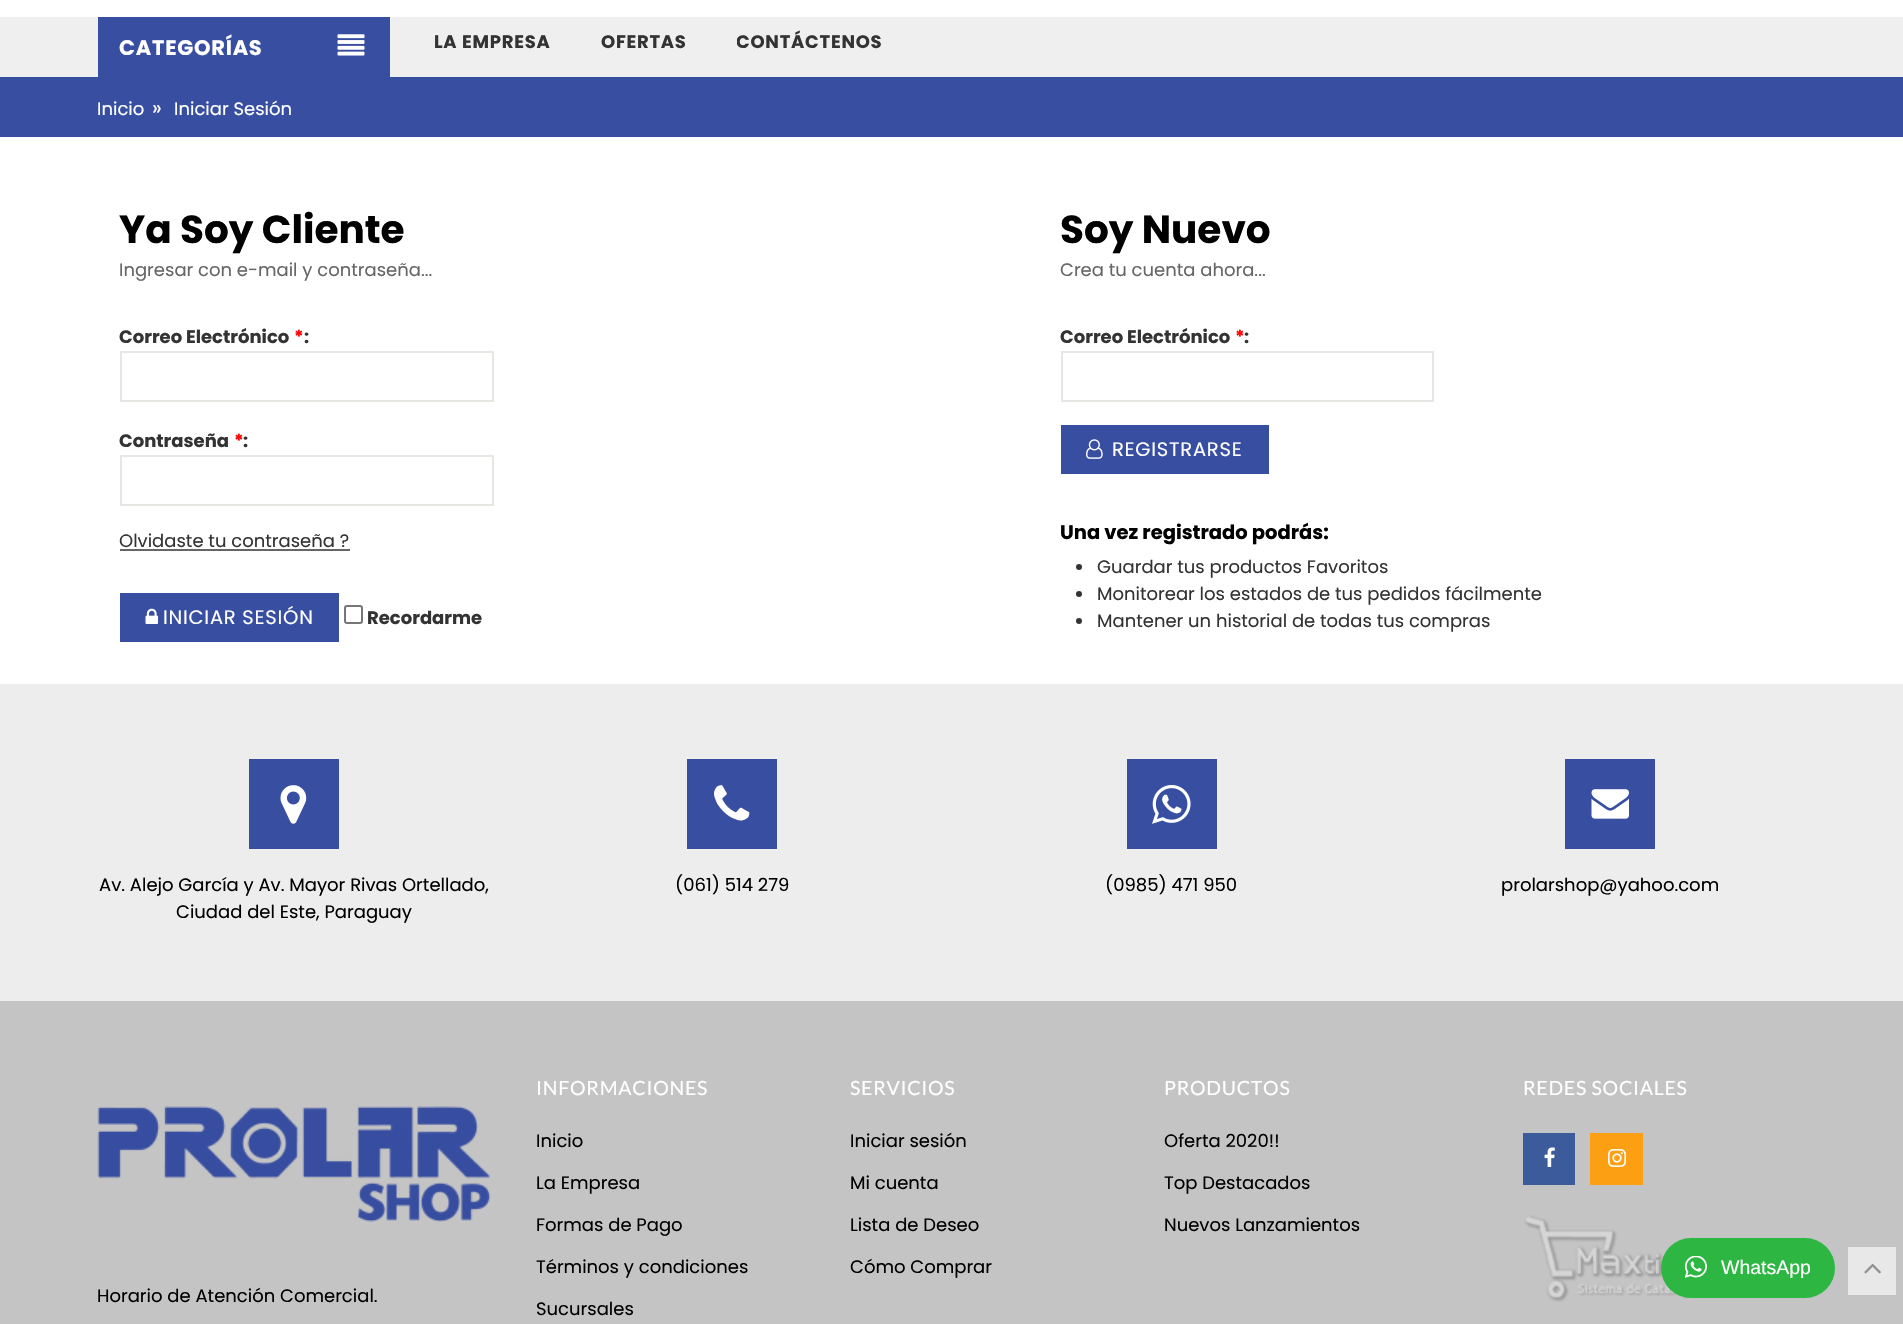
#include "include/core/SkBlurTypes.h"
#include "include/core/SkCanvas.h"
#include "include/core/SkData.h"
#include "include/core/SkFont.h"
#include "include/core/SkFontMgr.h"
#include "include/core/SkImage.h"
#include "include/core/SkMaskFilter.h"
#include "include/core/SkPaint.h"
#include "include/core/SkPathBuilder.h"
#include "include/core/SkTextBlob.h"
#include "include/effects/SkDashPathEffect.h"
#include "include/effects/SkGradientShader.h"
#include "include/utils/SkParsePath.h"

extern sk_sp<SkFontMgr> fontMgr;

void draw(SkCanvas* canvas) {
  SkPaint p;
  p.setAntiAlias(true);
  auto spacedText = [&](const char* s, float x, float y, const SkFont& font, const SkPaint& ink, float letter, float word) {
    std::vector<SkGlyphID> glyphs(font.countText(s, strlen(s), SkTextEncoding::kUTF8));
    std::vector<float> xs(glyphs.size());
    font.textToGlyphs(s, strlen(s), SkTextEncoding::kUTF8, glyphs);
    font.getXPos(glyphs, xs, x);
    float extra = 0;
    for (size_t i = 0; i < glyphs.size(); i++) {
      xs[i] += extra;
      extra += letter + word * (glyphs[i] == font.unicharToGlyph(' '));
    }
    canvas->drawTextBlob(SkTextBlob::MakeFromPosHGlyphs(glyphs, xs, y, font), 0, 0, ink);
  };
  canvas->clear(SK_ColorWHITE);
  p.setColor(SkColorSetRGB(239, 239, 239));
  canvas->drawRect(SkRect::MakeLTRB(0, 17, 1903, 77), p);
  p.setColor(SkColorSetRGB(56, 78, 161));
  canvas->drawRect(SkRect::MakeLTRB(98, 17, 390, 77), p);
  canvas->drawImageRect(SkImages::DeferredFromEncodedData(SkData::MakeFromFileName("images/1.png")), SkRect::MakeLTRB(337, 34, 365, 56), SkSamplingOptions());
  canvas->drawRect(SkRect::MakeLTRB(0, 77, 1903, 137), p);
  p.setStyle(SkPaint::kStroke_Style);
  p.setStrokeWidth(2);
  p.setColor(SkColorSetRGB(232, 230, 226));
  canvas->drawRect(SkRect::MakeLTRB(121, 352, 493, 401), p);
  canvas->drawRect(SkRect::MakeLTRB(121, 456, 493, 505), p);
  p.setStyle(SkPaint::kFill_Style);
  p.setColor(SkColorSetRGB(102, 102, 102));
  canvas->drawRect(SkRect::MakeLTRB(120, 549, 350, 551), p);
  p.setColor(SkColorSetRGB(56, 78, 161));
  canvas->drawRect(SkRect::MakeLTRB(120, 593, 339, 642), p);
  canvas->drawImageRect(SkImages::DeferredFromEncodedData(SkData::MakeFromFileName("images/2.png")), SkRect::MakeLTRB(145, 608, 159, 624), SkSamplingOptions());
  p.setStyle(SkPaint::kStroke_Style);
  p.setColor(SkColorSetRGB(118, 118, 118));
  canvas->drawRoundRect(SkRect::MakeLTRB(345, 606, 362, 623), 2, 2, p);
  p.setColor(SkColorSetRGB(232, 230, 226));
  canvas->drawRect(SkRect::MakeLTRB(1062, 352, 1433, 401), p);
  p.setStyle(SkPaint::kFill_Style);
  p.setColor(SkColorSetRGB(56, 78, 161));
  canvas->drawRect(SkRect::MakeLTRB(1061, 425, 1269, 474), p);
  canvas->drawImageRect(SkImages::DeferredFromEncodedData(SkData::MakeFromFileName("images/3.png")), SkRect::MakeLTRB(1086, 439, 1103, 459), SkSamplingOptions());
  p.setColor(SkColorSetRGB(51, 51, 51));
  canvas->drawCircle(1079, 567, 3, p);
  canvas->drawCircle(1079, 594, 3, p);
  canvas->drawCircle(1079, 621, 3, p);
  p.setColor(SkColorSetRGB(196, 196, 196));
  canvas->drawRect(SkRect::MakeLTRB(0, 1001, 1903, 1324), p);
  p.setColor(SkColorSetRGB(237, 237, 237));
  canvas->drawRect(SkRect::MakeLTRB(0, 684, 1903, 1001), p);
  p.setColor(SkColorSetRGB(56, 78, 161));
  canvas->drawRect(SkRect::MakeLTRB(249, 759, 339, 849), p);
  canvas->drawImageRect(SkImages::DeferredFromEncodedData(SkData::MakeFromFileName("images/4.png")), SkRect::MakeLTRB(280, 785, 307, 824), SkSamplingOptions());
  canvas->drawRect(SkRect::MakeLTRB(687, 759, 777, 849), p);
  canvas->drawImageRect(SkImages::DeferredFromEncodedData(SkData::MakeFromFileName("images/5.png")), SkRect::MakeLTRB(714, 785, 750, 821), SkSamplingOptions());
  canvas->drawRect(SkRect::MakeLTRB(1127, 759, 1217, 849), p);
  canvas->drawImageRect(SkImages::DeferredFromEncodedData(SkData::MakeFromFileName("images/6.png")), SkRect::MakeLTRB(1152, 785, 1191, 824), SkSamplingOptions());
  canvas->drawRect(SkRect::MakeLTRB(1565, 759, 1655, 849), p);
  canvas->drawImageRect(SkImages::DeferredFromEncodedData(SkData::MakeFromFileName("images/7.png")), SkRect::MakeLTRB(1591, 789, 1629, 819), SkSamplingOptions());
  canvas->drawImageRect(SkImages::DeferredFromEncodedData(SkData::MakeFromFileName("images/8.png")), SkRect::MakeLTRB(97, 1106, 491, 1222), SkSamplingOptions());
  p.setColor(SkColorSetRGB(60, 91, 155));
  canvas->drawRect(SkRect::MakeLTRB(1523, 1133, 1575, 1185), p);
  canvas->drawImageRect(SkImages::DeferredFromEncodedData(SkData::MakeFromFileName("images/9.png")), SkRect::MakeLTRB(1544, 1147, 1555, 1167), SkSamplingOptions());
  p.setColor(SkColorSetRGB(253, 159, 19));
  canvas->drawRect(SkRect::MakeLTRB(1590, 1133, 1643, 1185), p);
  canvas->drawImageRect(SkImages::DeferredFromEncodedData(SkData::MakeFromFileName("images/10.png")), SkRect::MakeLTRB(1608, 1149, 1626, 1167), SkSamplingOptions());
  canvas->drawImageRect(SkImages::DeferredFromEncodedData(SkData::MakeFromFileName("images/11.png")), SkRect::MakeLTRB(1524, 1215, 1689, 1302), SkSamplingOptions());
  p.setColor(SkColorSetRGB(232, 232, 232));
  canvas->drawRect(SkRect::MakeLTRB(1848, 1247, 1896, 1295), p);
  canvas->drawImageRect(SkImages::DeferredFromEncodedData(SkData::MakeFromFileName("images/12.png")), SkRect::MakeLTRB(1864, 1263, 1881, 1274), SkSamplingOptions());
  p.setColor(SkColorSetRGB(45, 183, 66));
  canvas->drawRoundRect(SkRect::MakeLTRB(1661, 1238, 1835, 1298), 30, 30, p);
  canvas->drawImageRect(SkImages::DeferredFromEncodedData(SkData::MakeFromFileName("images/13.png")), SkRect::MakeLTRB(1685, 1256, 1707, 1278), SkSamplingOptions());
  SkFont font1(fontMgr->matchFamilyStyle("Poppins", SkFontStyle::Bold()), 21);
  font1.setSubpixel(true);
  p.setColor(SK_ColorWHITE);
  spacedText("CATEGORÍAS", 119, 55, font1, p, 0.75f, 0);
  SkFont font2(fontMgr->matchFamilyStyle("Poppins", SkFontStyle::Bold()), 18);
  font2.setSubpixel(true);
  p.setColor(SkColorSetRGB(51, 51, 51));
  spacedText("LA EMPRESA", 434, 48, font2, p, 0.75f, 0);
  spacedText("OFERTAS", 601, 48, font2, p, 0.75f, 0);
  canvas->save();
  canvas->clipRect(SkRect::MakeLTRB(737, 17, 882, 71));
  spacedText("CONTÁCTENOS", 736, 48, font2, p, 0.75f, 0);
  canvas->restore();
  SkFont font3(fontMgr->matchFamilyStyle("Poppins", SkFontStyle::Normal()), 18);
  font3.setSubpixel(true);
  p.setColor(SK_ColorWHITE);
  canvas->drawString("Inicio", 97, 115, font3, p);
  SkFont font4(fontMgr->matchFamilyStyle("Poppins", SkFontStyle::Normal()), 21);
  font4.setSubpixel(true);
  canvas->drawString("»", 152, 115, font4, p);
  canvas->drawString("Iniciar Sesión", 174, 115, font3, p);
  SkFont font5(fontMgr->matchFamilyStyle("Poppins", SkFontStyle::Bold()), 39);
  font5.setSubpixel(true);
  p.setColor(SK_ColorBLACK);
  canvas->drawString("Ya Soy Cliente", 119, 243, font5, p);
  p.setColor(SkColorSetRGB(102, 102, 102));
  canvas->drawString("Ingresar con e-mail y contraseña...", 119, 276, font3, p);
  p.setColor(SkColorSetRGB(51, 51, 51));
  canvas->drawString("Correo Electrónico", 119, 343, font2, p);
  p.setColor(SkColorSetRGB(255, 0, 0));
  canvas->drawString("*", 294, 343, font2, p);
  p.setColor(SkColorSetRGB(51, 51, 51));
  canvas->drawString(":", 304, 343, font2, p);
  canvas->drawString("Contraseña", 119, 447, font2, p);
  p.setColor(SkColorSetRGB(255, 0, 0));
  canvas->drawString("*", 234, 447, font2, p);
  p.setColor(SkColorSetRGB(51, 51, 51));
  canvas->drawString(":", 243, 447, font2, p);
  canvas->drawString("Olvidaste tu contraseña ?", 119, 547, font3, p);
  SkFont font6(fontMgr->matchFamilyStyle("Poppins", SkFontStyle::Normal()), 19.5f);
  font6.setSubpixel(true);
  p.setColor(SK_ColorWHITE);
  spacedText("INICIAR SESIÓN", 163, 624, font6, p, 0.75f, 0);
  p.setColor(SkColorSetRGB(51, 51, 51));
  canvas->drawString("Recordarme", 367, 624, font2, p);
  p.setColor(SK_ColorBLACK);
  canvas->drawString("Soy Nuevo", 1060, 243, font5, p);
  p.setColor(SkColorSetRGB(102, 102, 102));
  canvas->drawString("Crea tu cuenta ahora...", 1060, 276, font3, p);
  p.setColor(SkColorSetRGB(51, 51, 51));
  canvas->drawString("Correo Electrónico", 1060, 343, font2, p);
  p.setColor(SkColorSetRGB(255, 0, 0));
  canvas->drawString("*", 1235, 343, font2, p);
  p.setColor(SkColorSetRGB(51, 51, 51));
  canvas->drawString(":", 1244, 343, font2, p);
  p.setColor(SK_ColorWHITE);
  spacedText("REGISTRARSE", 1112, 456, font6, p, 0.75f, 0);
  SkFont font7(fontMgr->matchFamilyStyle("Poppins", SkFontStyle::Bold()), 19.5f);
  font7.setSubpixel(true);
  p.setColor(SK_ColorBLACK);
  canvas->drawString("Una vez registrado podrás:", 1060, 539, font7, p);
  p.setColor(SkColorSetRGB(51, 51, 51));
  canvas->drawString("Guardar tus productos Favoritos", 1097, 573, font3, p);
  canvas->drawString("Monitorear los estados de tus pedidos fácilmente", 1097, 600, font3, p);
  canvas->drawString("Mantener un historial de todas tus compras", 1097, 627, font3, p);
  p.setColor(SK_ColorBLACK);
  canvas->drawString("Av. Alejo García y Av. Mayor Rivas Ortellado,", 99, 891, font3, p);
  canvas->drawString("Ciudad del Este, Paraguay", 176, 918, font3, p);
  canvas->drawString("(061) 514 279", 675, 891, font3, p);
  canvas->drawString("(0985) 471 950", 1105, 891, font3, p);
  canvas->drawString("prolarshop@yahoo.com", 1501, 891, font3, p);
  canvas->drawString("Horario de Atención Comercial.", 97, 1302, font3, p);
  SkFont font8(fontMgr->matchFamilyStyle("Lato", SkFontStyle::Normal()), 19.5f);
  font8.setSubpixel(true);
  p.setColor(SK_ColorWHITE);
  spacedText("INFORMACIONES", 536, 1095, font8, p, 0.75f, 0);
  p.setColor(SK_ColorBLACK);
  canvas->drawString("Inicio", 536, 1147, font3, p);
  canvas->drawString("La Empresa", 536, 1189, font3, p);
  canvas->drawString("Formas de Pago", 536, 1231, font3, p);
  canvas->drawString("Términos y condiciones", 536, 1273, font3, p);
  canvas->drawString("Sucursales", 536, 1315, font3, p);
  p.setColor(SK_ColorWHITE);
  spacedText("SERVICIOS", 850, 1095, font8, p, 0.75f, 0);
  p.setColor(SK_ColorBLACK);
  canvas->drawString("Iniciar sesión", 850, 1147, font3, p);
  canvas->drawString("Mi cuenta", 850, 1189, font3, p);
  canvas->drawString("Lista de Deseo", 850, 1231, font3, p);
  canvas->drawString("Cómo Comprar", 850, 1273, font3, p);
  p.setColor(SK_ColorWHITE);
  spacedText("PRODUCTOS", 1164, 1095, font8, p, 0.75f, 0);
  p.setColor(SK_ColorBLACK);
  canvas->drawString("Oferta 2020!!", 1164, 1147, font3, p);
  canvas->drawString("Top Destacados", 1164, 1189, font3, p);
  canvas->drawString("Nuevos Lanzamientos", 1164, 1231, font3, p);
  p.setColor(SK_ColorWHITE);
  spacedText("REDES SOCIALES", 1523, 1095, font8, p, 0.75f, 0);
  SkFont font9(fontMgr->matchFamilyStyle("Liberation Sans", SkFontStyle::Normal()), 19.5f);
  font9.setSubpixel(true);
  canvas->drawString("WhatsApp", 1721, 1274, font9, p);
}
